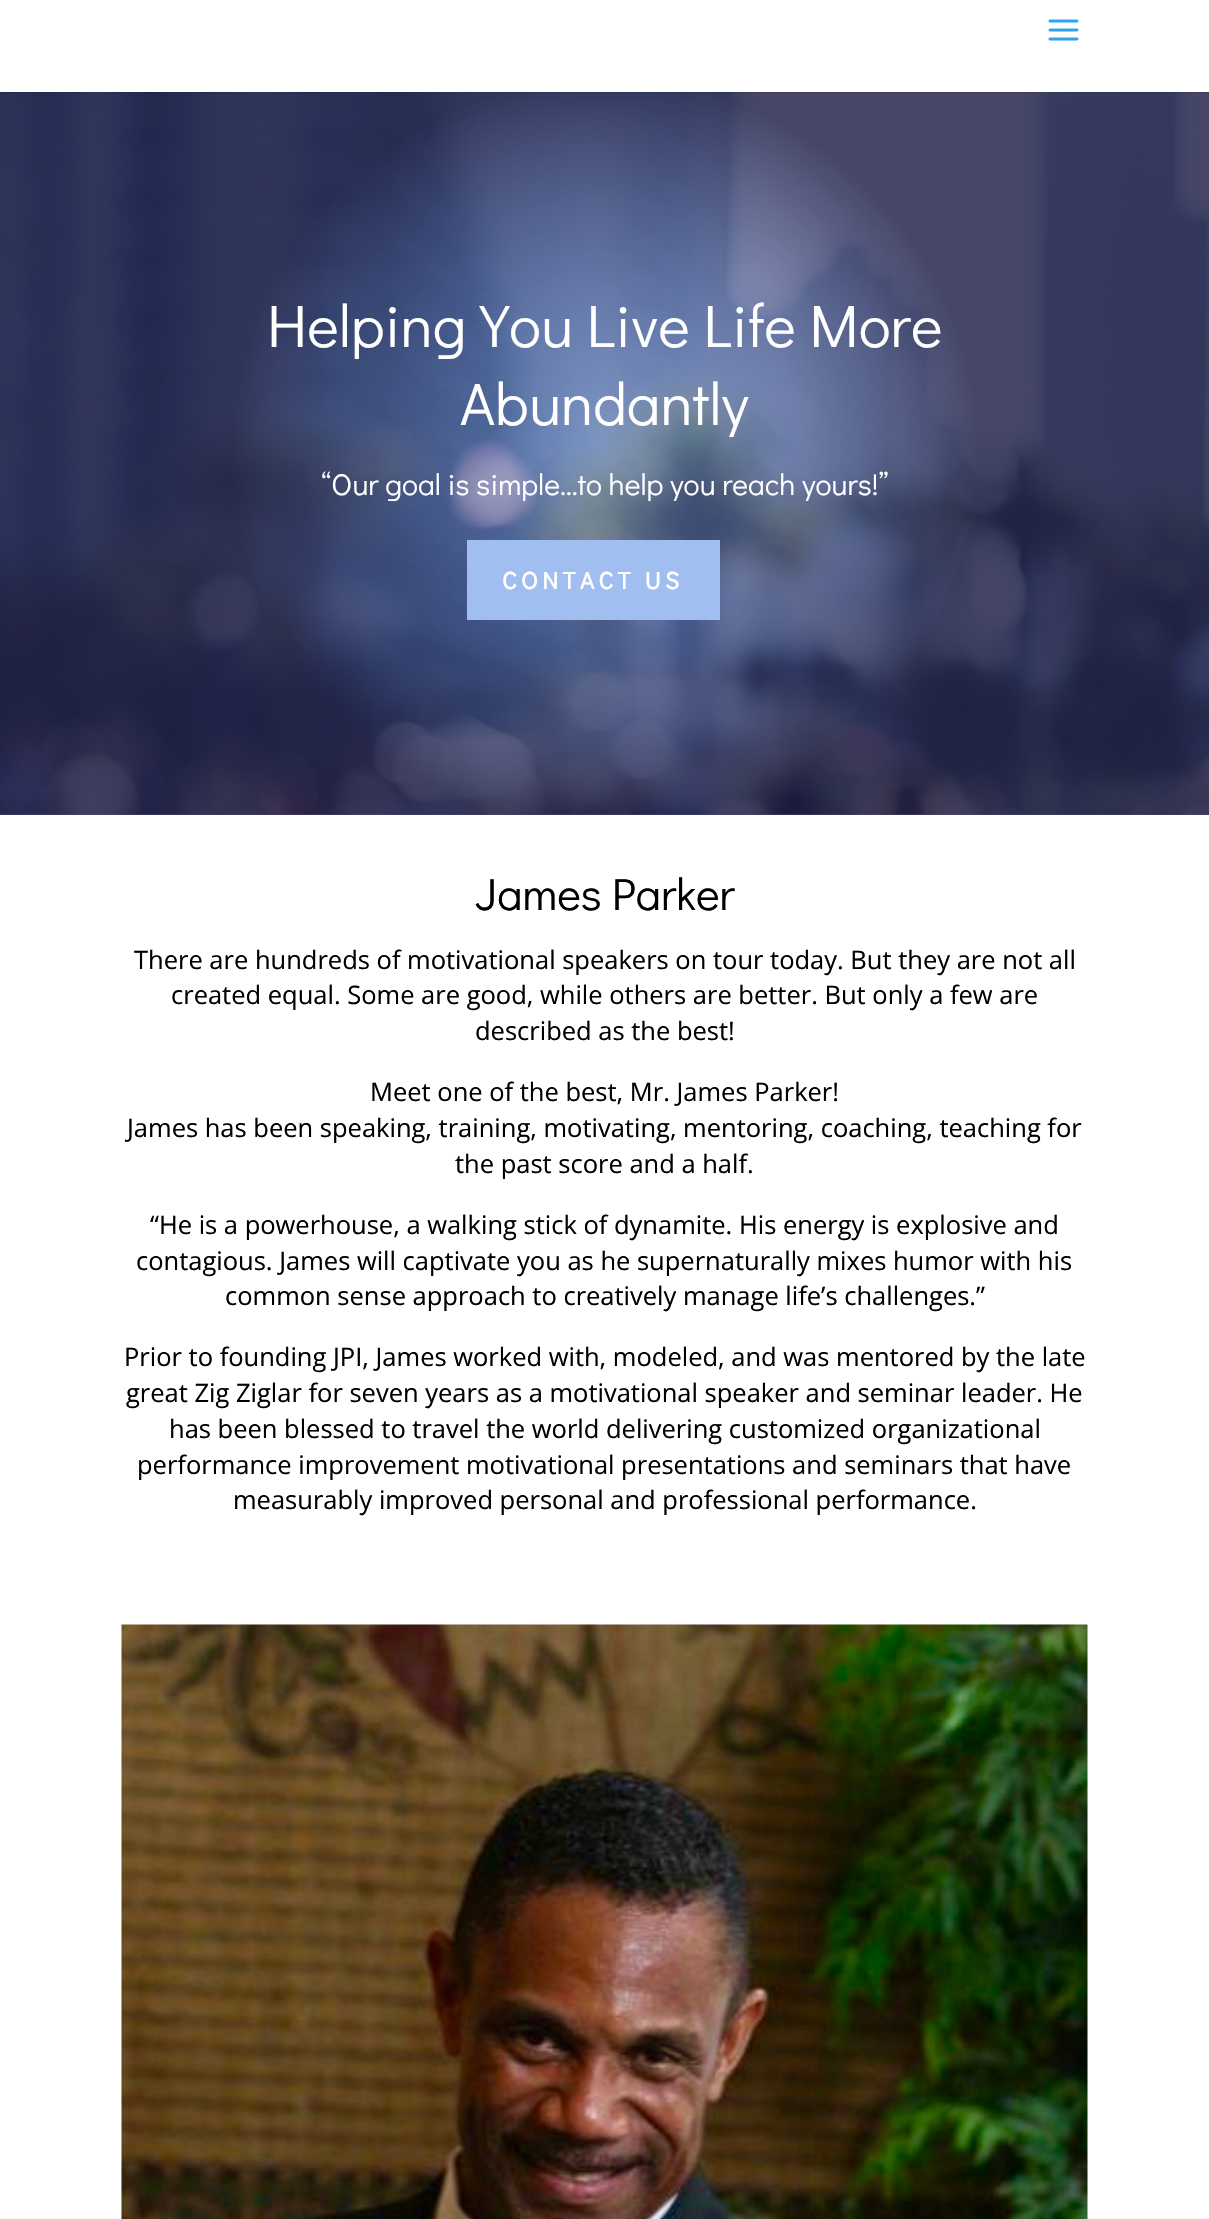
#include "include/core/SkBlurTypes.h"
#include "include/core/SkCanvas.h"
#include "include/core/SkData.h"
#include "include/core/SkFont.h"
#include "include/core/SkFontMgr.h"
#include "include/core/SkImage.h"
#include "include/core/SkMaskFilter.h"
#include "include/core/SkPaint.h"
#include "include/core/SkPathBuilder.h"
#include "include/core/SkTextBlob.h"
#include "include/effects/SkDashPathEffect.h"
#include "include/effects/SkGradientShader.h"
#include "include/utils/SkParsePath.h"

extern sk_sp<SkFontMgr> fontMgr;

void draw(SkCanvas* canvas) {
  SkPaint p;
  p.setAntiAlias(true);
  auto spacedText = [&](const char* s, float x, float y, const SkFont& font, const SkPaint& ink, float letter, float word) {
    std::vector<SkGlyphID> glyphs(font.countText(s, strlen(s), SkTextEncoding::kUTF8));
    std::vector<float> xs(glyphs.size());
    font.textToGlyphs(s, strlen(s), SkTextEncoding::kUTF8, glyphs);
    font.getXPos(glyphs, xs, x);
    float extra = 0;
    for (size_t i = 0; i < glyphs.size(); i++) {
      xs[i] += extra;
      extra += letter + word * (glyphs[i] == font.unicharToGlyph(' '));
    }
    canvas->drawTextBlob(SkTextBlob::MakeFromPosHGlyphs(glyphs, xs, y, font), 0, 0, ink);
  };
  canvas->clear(SK_ColorWHITE);
  canvas->drawImageRect(SkImages::DeferredFromEncodedData(SkData::MakeFromFileName("images/2.png")), SkRect::MakeLTRB(0, 92, 1209, 815), SkSamplingOptions());
  {
    const SkColor colors[] = {SkColorSetARGB(94, 102, 133, 221), SkColorSetARGB(207, 31, 31, 71)};
    const float stops[] = {0, 0.53f};
    p.setShader(SkGradientShader::MakeRadial({605, 452}, 705, colors, stops, 2, SkTileMode::kClamp));
    p.setAlpha(255);
  }
  canvas->drawRect(SkRect::MakeLTRB(0, 92, 1209, 815), p);
  p.setShader(nullptr);
  p.setColor(SkColorSetARGB(26, 0, 0, 0));
  canvas->drawRect(SkRect::MakeLTRB(0, 92, 1209, 93), p);
  canvas->drawImageRect(SkImages::DeferredFromEncodedData(SkData::MakeFromFileName("images/1.png")), SkRect::MakeLTRB(1048, 19, 1079, 41), SkSamplingOptions());
  p.setColor(SkColorSetRGB(160, 190, 239));
  canvas->drawRect(SkRect::MakeLTRB(467, 540, 720, 620), p);
  canvas->drawImageRect(SkImages::DeferredFromEncodedData(SkData::MakeFromFileName("images/3.png")), SkRect::MakeLTRB(121, 1624, 1088, 2219), SkSamplingOptions());
  SkFont font1(fontMgr->matchFamilyStyle("Didact Gothic", SkFontStyle::Normal()), 60);
  font1.setSubpixel(true);
  p.setColor(SK_ColorWHITE);
  canvas->drawString("Helping You Live Life More", 267, 347, font1, p);
  canvas->drawString("Abundantly", 460, 425, font1, p);
  SkFont font2(fontMgr->matchFamilyStyle("Didact Gothic", SkFontStyle::Normal()), 30);
  font2.setSubpixel(true);
  canvas->drawString("“Our goal is simple…to help you reach yours!”", 321, 495, font2, p);
  SkFont font3(fontMgr->matchFamilyStyle("Didact Gothic", SkFontStyle::Bold()), 24);
  font3.setSubpixel(true);
  spacedText("CONTACT US", 502, 589, font3, p, 4.5f, 0);
  SkFont font4(fontMgr->matchFamilyStyle("Didact Gothic", SkFontStyle::Normal()), 45);
  font4.setSubpixel(true);
  p.setColor(SK_ColorBLACK);
  canvas->drawString("James Parker", 475, 910, font4, p);
  SkFont font5(fontMgr->matchFamilyStyle("Open Sans", SkFontStyle::Normal()), 25.5f);
  font5.setSubpixel(true);
  canvas->drawString("There are hundreds of motivational speakers on tour today. But they are not all", 134, 969, font5, p);
  canvas->drawString("created equal. Some are good, while others are better. But only a few are", 171, 1004, font5, p);
  canvas->drawString("described as the best!", 475, 1040, font5, p);
  canvas->drawString("Meet one of the best, Mr. James Parker!", 370, 1101, font5, p);
  canvas->drawString("James has been speaking, training, motivating, mentoring, coaching, teaching for", 127, 1137, font5, p);
  canvas->drawString("the past score and a half.", 455, 1173, font5, p);
  canvas->drawString("“He is a powerhouse, a walking stick of dynamite. His energy is explosive and", 150, 1234, font5, p);
  canvas->drawString("contagious. James will captivate you as he supernaturally mixes humor with his", 136, 1270, font5, p);
  canvas->drawString("common sense approach to creatively manage life’s challenges.”", 225, 1305, font5, p);
  canvas->drawString("Prior to founding JPI, James worked with, modeled, and was mentored by the late", 124, 1366, font5, p);
  canvas->drawString("great Zig Ziglar for seven years as a motivational speaker and seminar leader. He", 126, 1402, font5, p);
  canvas->drawString("has been blessed to travel the world delivering customized organizational", 169, 1438, font5, p);
  canvas->drawString("performance improvement motivational presentations and seminars that have", 137, 1474, font5, p);
  canvas->drawString("measurably improved personal and professional performance.", 233, 1509, font5, p);
}
